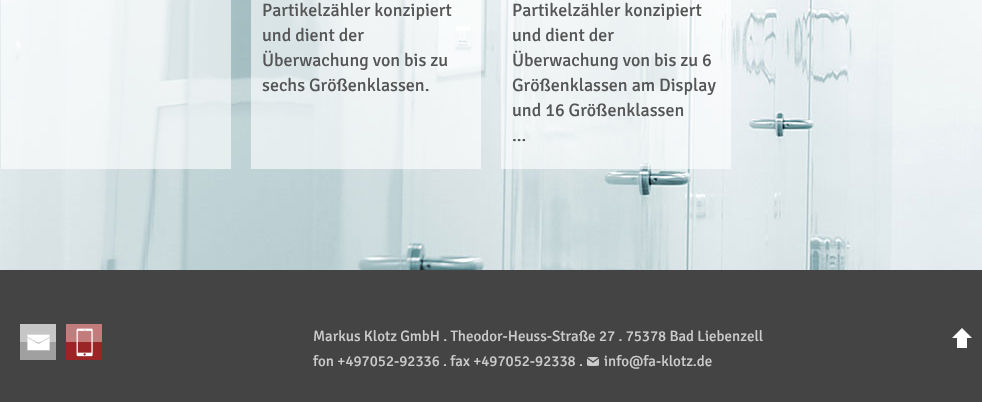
#include "include/core/SkBlurTypes.h"
#include "include/core/SkCanvas.h"
#include "include/core/SkData.h"
#include "include/core/SkFont.h"
#include "include/core/SkFontMgr.h"
#include "include/core/SkImage.h"
#include "include/core/SkMaskFilter.h"
#include "include/core/SkPaint.h"
#include "include/core/SkPathBuilder.h"
#include "include/core/SkTextBlob.h"
#include "include/effects/SkDashPathEffect.h"
#include "include/effects/SkGradientShader.h"
#include "include/utils/SkParsePath.h"

extern sk_sp<SkFontMgr> fontMgr;

void draw(SkCanvas* canvas) {
  SkPaint p;
  p.setAntiAlias(true);
  canvas->clear(SK_ColorWHITE);
  canvas->drawImageRect(SkImages::DeferredFromEncodedData(SkData::MakeFromFileName("images/1.png")), SkRect::MakeLTRB(0, 0, 982, 270), SkSamplingOptions());
  p.setColor(SkColorSetARGB(153, 255, 255, 255));
  canvas->drawRect(SkRect::MakeLTRB(1, 0, 231, 169), p);
  canvas->drawRect(SkRect::MakeLTRB(251, 0, 481, 169), p);
  canvas->drawRect(SkRect::MakeLTRB(501, 0, 731, 169), p);
  p.setColor(SkColorSetRGB(68, 68, 68));
  canvas->drawRect(SkRect::MakeLTRB(0, 270, 982, 402), p);
  {
    const SkColor colors[] = {SkColorSetRGB(198, 198, 198), SkColorSetRGB(198, 198, 198), SkColorSetRGB(160, 160, 160), SkColorSetRGB(160, 160, 160)};
    const float stops[] = {0, 0.5f, 0.51f, 1};
    const SkPoint ends[] = {{38, 324}, {38, 360}};
    p.setShader(SkGradientShader::MakeLinear(ends, colors, stops, 4, SkTileMode::kClamp));
    p.setAlpha(255);
  }
  canvas->drawRect(SkRect::MakeLTRB(20, 324, 56, 360), p);
  canvas->drawImageRect(SkImages::DeferredFromEncodedData(SkData::MakeFromFileName("images/2.png")), SkRect::MakeLTRB(27, 334, 50, 351), SkSamplingOptions());
  {
    const SkColor colors[] = {SkColorSetRGB(195, 124, 124), SkColorSetRGB(195, 124, 124), SkColorSetRGB(155, 36, 36), SkColorSetRGB(155, 36, 36)};
    const float stops[] = {0, 0.5f, 0.51f, 1};
    const SkPoint ends[] = {{84, 324}, {84, 360}};
    p.setShader(SkGradientShader::MakeLinear(ends, colors, stops, 4, SkTileMode::kClamp));
    p.setAlpha(255);
  }
  canvas->drawRect(SkRect::MakeLTRB(66, 324, 102, 360), p);
  canvas->drawImageRect(SkImages::DeferredFromEncodedData(SkData::MakeFromFileName("images/3.png")), SkRect::MakeLTRB(76, 328, 93, 357), SkSamplingOptions());
  canvas->drawImageRect(SkImages::DeferredFromEncodedData(SkData::MakeFromFileName("images/4.png")), SkRect::MakeLTRB(587, 357, 599, 366), SkSamplingOptions());
  p.setShader(nullptr);
  p.setColor(SK_ColorWHITE);
  canvas->drawPath(SkPathBuilder().moveTo(972, 338).lineTo(952, 338).lineTo(962, 328).close().detach(), p);
  canvas->drawRect(SkRect::MakeLTRB(957, 338, 967, 348), p);
  SkFont font1(fontMgr->matchFamilyStyle("Signika", SkFontStyle::Normal()), 18);
  font1.setSubpixel(true);
  p.setColor(SkColorSetRGB(85, 85, 85));
  canvas->drawString("Partikelzähler konzipiert", 262, 16, font1, p);
  canvas->drawString("und dient der", 262, 41, font1, p);
  canvas->drawString("Überwachung von bis zu", 262, 66, font1, p);
  canvas->drawString("sechs Größenklassen.", 262, 91, font1, p);
  canvas->drawString("Partikelzähler konzipiert", 512, 16, font1, p);
  canvas->drawString("und dient der", 512, 41, font1, p);
  canvas->drawString("Überwachung von bis zu 6", 512, 66, font1, p);
  canvas->drawString("Größenklassen am Display", 512, 91, font1, p);
  canvas->drawString("und 16 Größenklassen", 512, 116, font1, p);
  canvas->drawString("...", 512, 141, font1, p);
  SkFont font2(fontMgr->matchFamilyStyle("Signika", SkFontStyle::Normal()), 15);
  font2.setSubpixel(true);
  p.setColor(SkColorSetRGB(204, 204, 204));
  canvas->drawString("Markus Klotz GmbH . Theodor-Heuss-Straße 27 . 75378 Bad Liebenzell", 313, 341, font2, p);
  canvas->drawString("fon +497052-92336 . fax +497052-92338 .", 313, 366, font2, p);
  canvas->drawString("info@fa-klotz.de", 604, 366, font2, p);
}
